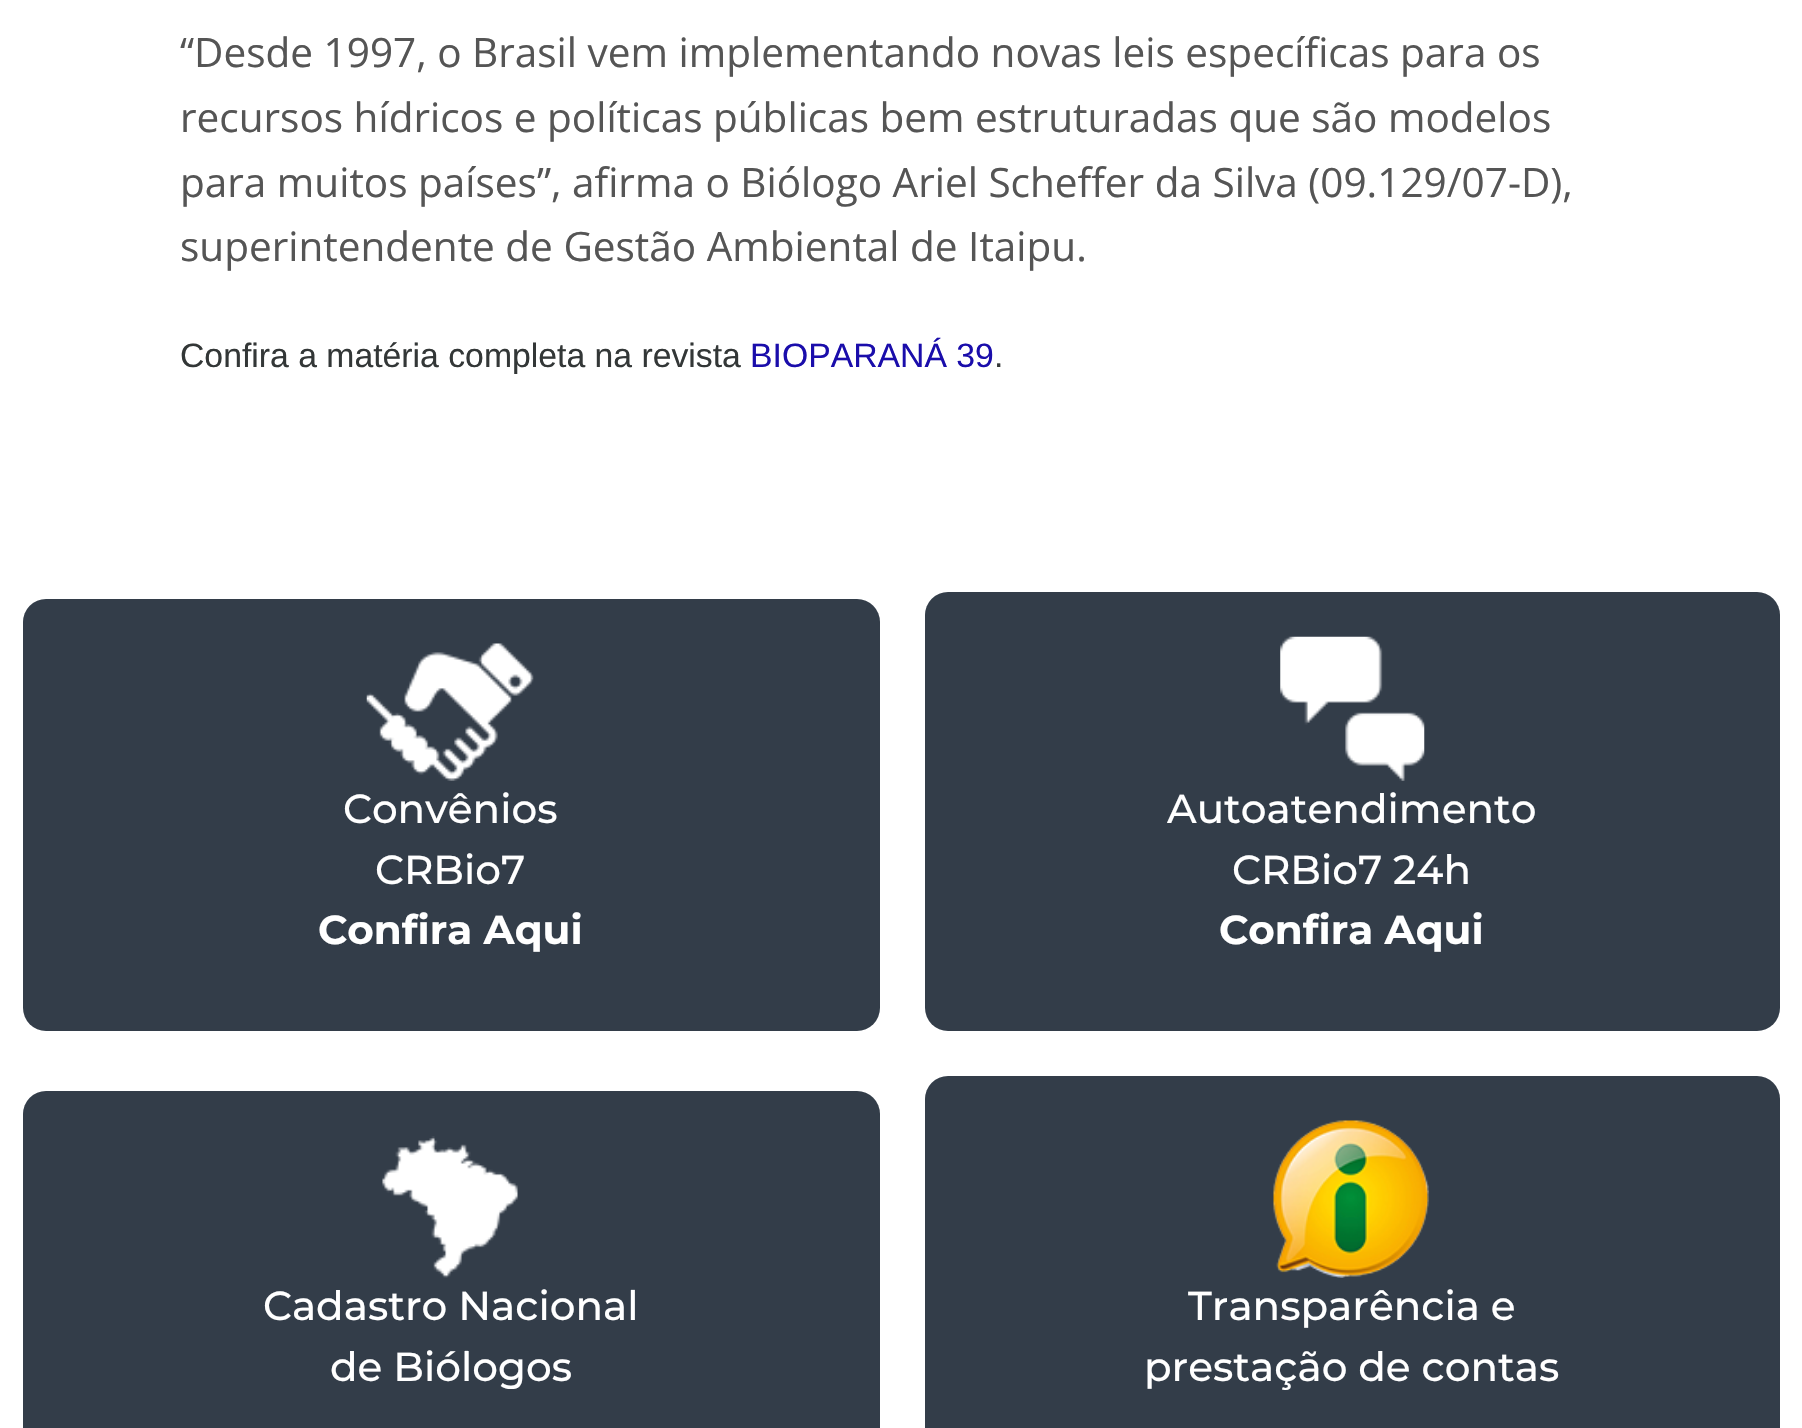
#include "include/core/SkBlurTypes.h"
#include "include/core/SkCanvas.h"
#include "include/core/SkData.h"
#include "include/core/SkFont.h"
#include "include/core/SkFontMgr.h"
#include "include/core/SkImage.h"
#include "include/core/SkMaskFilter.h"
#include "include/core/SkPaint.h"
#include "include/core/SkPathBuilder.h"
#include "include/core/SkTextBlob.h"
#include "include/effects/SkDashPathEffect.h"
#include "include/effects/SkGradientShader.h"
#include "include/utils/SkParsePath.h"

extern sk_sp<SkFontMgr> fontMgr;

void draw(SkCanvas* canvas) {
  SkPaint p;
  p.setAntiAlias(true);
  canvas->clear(SK_ColorWHITE);
  p.setColor(SkColorSetRGB(51, 61, 73));
  canvas->drawRoundRect(SkRect::MakeLTRB(23, 599, 880, 1031), 23, 23, p);
  canvas->drawImageRect(SkImages::DeferredFromEncodedData(SkData::MakeFromFileName("images/1.png")), SkRect::MakeLTRB(366, 643, 534, 781), SkSamplingOptions());
  canvas->drawRoundRect(SkRect::MakeLTRB(925, 592, 1780, 1031), 23, 23, p);
  canvas->drawImageRect(SkImages::DeferredFromEncodedData(SkData::MakeFromFileName("images/2.png")), SkRect::MakeLTRB(1280, 636, 1425, 781), SkSamplingOptions());
  canvas->drawRoundRect(SkRect::MakeLTRB(23, 1091, 880, 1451), 23, 23, p);
  canvas->drawImageRect(SkImages::DeferredFromEncodedData(SkData::MakeFromFileName("images/3.png")), SkRect::MakeLTRB(382, 1136, 518, 1278), SkSamplingOptions());
  canvas->drawRoundRect(SkRect::MakeLTRB(925, 1076, 1780, 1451), 23, 23, p);
  canvas->drawImageRect(SkImages::DeferredFromEncodedData(SkData::MakeFromFileName("images/4.png")), SkRect::MakeLTRB(1273, 1120, 1429, 1278), SkSamplingOptions());
  SkFont font1(fontMgr->matchFamilyStyle("Open Sans", SkFontStyle::Normal()), 40.5f);
  font1.setSubpixel(true);
  p.setColor(SkColorSetRGB(85, 85, 85));
  canvas->drawString("“Desde 1997, o Brasil vem implementando novas leis específicas para os", 180, 67, font1, p);
  canvas->drawString("recursos hídricos e políticas públicas bem estruturadas que são modelos", 180, 132, font1, p);
  canvas->drawString("para muitos países”, afirma o Biólogo Ariel Scheffer da Silva (09.129/07-D),", 180, 197, font1, p);
  canvas->drawString("superintendente de Gestão Ambiental de Itaipu.", 180, 261, font1, p);
  SkFont font2(fontMgr->matchFamilyStyle("Liberation Sans", SkFontStyle::Normal()), 33.75f);
  font2.setSubpixel(true);
  p.setColor(SkColorSetRGB(51, 55, 55));
  canvas->drawString("Confira a matéria completa na revista", 180, 367, font2, p);
  p.setColor(SkColorSetRGB(26, 13, 171));
  canvas->drawString("BIOPARANÁ 39", 750, 367, font2, p);
  p.setColor(SkColorSetRGB(51, 55, 55));
  canvas->drawString(".", 994, 367, font2, p);
  SkFont font3(fontMgr->matchFamilyStyle("Montserrat", SkFontStyle(100, SkFontStyle::kNormal_Width, SkFontStyle::kUpright_Slant)), 40.5f);
  font3.setSubpixel(true);
  p.setColor(SK_ColorWHITE);
  canvas->drawString("Convênios", 343, 823, font3, p);
  canvas->drawString("CRBio7", 375, 884, font3, p);
  SkFont font4(fontMgr->matchFamilyStyle("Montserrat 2", SkFontStyle(100, SkFontStyle::kNormal_Width, SkFontStyle::kUpright_Slant)), 40.5f);
  font4.setSubpixel(true);
  canvas->drawString("Confira Aqui", 318, 944, font4, p);
  canvas->drawString("Autoatendimento", 1167, 823, font3, p);
  canvas->drawString("CRBio7 24h", 1232, 884, font3, p);
  canvas->drawString("Confira Aqui", 1219, 944, font4, p);
  canvas->drawString("Cadastro Nacional", 263, 1320, font3, p);
  canvas->drawString("de Biólogos", 330, 1381, font3, p);
  canvas->drawString("Transparência e", 1188, 1320, font3, p);
  canvas->drawString("prestação de contas", 1144, 1381, font3, p);
}
